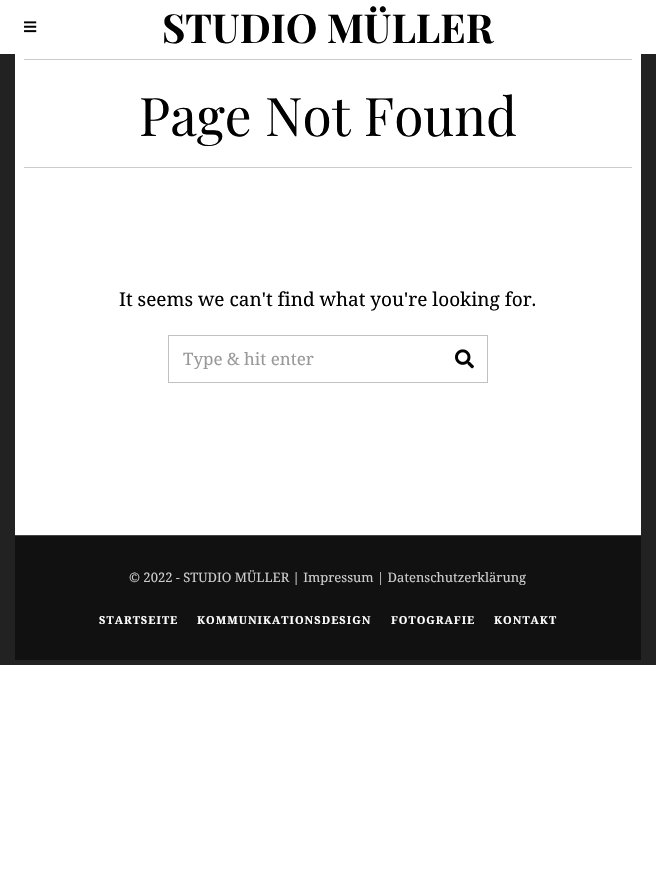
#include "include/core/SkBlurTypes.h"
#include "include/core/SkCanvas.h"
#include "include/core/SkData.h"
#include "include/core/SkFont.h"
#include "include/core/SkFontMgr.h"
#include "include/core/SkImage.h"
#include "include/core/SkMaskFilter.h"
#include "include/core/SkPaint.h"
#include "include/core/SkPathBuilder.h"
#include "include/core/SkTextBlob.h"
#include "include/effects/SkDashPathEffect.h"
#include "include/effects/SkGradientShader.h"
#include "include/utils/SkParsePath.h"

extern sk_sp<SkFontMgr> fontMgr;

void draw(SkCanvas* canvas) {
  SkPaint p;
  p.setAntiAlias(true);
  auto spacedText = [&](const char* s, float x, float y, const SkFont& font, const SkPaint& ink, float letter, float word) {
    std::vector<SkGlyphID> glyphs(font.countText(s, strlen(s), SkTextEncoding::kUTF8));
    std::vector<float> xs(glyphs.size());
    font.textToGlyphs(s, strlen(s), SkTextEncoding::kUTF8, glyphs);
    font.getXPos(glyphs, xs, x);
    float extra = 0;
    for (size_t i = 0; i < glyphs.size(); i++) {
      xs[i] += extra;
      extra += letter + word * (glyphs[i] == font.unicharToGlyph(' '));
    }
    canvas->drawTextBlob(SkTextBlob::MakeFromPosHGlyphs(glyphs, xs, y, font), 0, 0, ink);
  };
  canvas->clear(SK_ColorWHITE);
  p.setColor(SkColorSetRGB(34, 34, 34));
  canvas->drawRect(SkRect::MakeLTRB(641, 54, 656, 660), p);
  canvas->drawRect(SkRect::MakeLTRB(15, 660, 656, 665), p);
  canvas->drawRect(SkRect::MakeLTRB(0, 54, 15, 665), p);
  canvas->drawImageRect(SkImages::DeferredFromEncodedData(SkData::MakeFromFileName("images/1.png")), SkRect::MakeLTRB(24, 21, 37, 33), SkSamplingOptions());
  p.setColor(SkColorSetRGB(204, 204, 204));
  canvas->drawRect(SkRect::MakeLTRB(24, 59, 632, 60), p);
  canvas->drawRect(SkRect::MakeLTRB(24, 167, 632, 168), p);
  p.setStyle(SkPaint::kStroke_Style);
  p.setStrokeWidth(1);
  p.setColor(SkColorSetRGB(192, 193, 192));
  canvas->drawRect(SkRect::MakeLTRB(168.5f, 335.5f, 487.5f, 382.5f), p);
  canvas->drawImageRect(SkImages::DeferredFromEncodedData(SkData::MakeFromFileName("images/2.png")), SkRect::MakeLTRB(455, 349, 474, 369), SkSamplingOptions());
  p.setStyle(SkPaint::kFill_Style);
  p.setColor(SkColorSetRGB(17, 17, 17));
  canvas->drawRect(SkRect::MakeLTRB(15, 536, 641, 660), p);
  p.setColor(SkColorSetRGB(68, 68, 68));
  canvas->drawRect(SkRect::MakeLTRB(15, 535, 641, 536), p);
  SkFont font1(fontMgr->matchFamilyStyle("Playfair Display", SkFontStyle::Bold()), 40);
  font1.setSubpixel(true);
  p.setColor(SK_ColorBLACK);
  canvas->drawString("STUDIO MÜLLER", 162, 43, font1, p);
  SkFont font2(fontMgr->matchFamilyStyle("Playfair Display", SkFontStyle::Normal()), 53.25f);
  font2.setSubpixel(true);
  canvas->drawString("Page Not Found", 139, 136, font2, p);
  SkFont font3(fontMgr->matchFamilyStyle("Noto Serif", SkFontStyle::Normal()), 19);
  font3.setSubpixel(true);
  canvas->drawString("It seems we can't find what you're looking for.", 119, 306, font3, p);
  SkFont font4(fontMgr->matchFamilyStyle("Noto Serif", SkFontStyle::Normal()), 17);
  font4.setSubpixel(true);
  p.setColor(SkColorSetRGB(153, 153, 153));
  canvas->drawString("Type & hit enter", 183, 365, font4, p);
  SkFont font5(fontMgr->matchFamilyStyle("Noto Serif", SkFontStyle::Normal()), 13);
  font5.setSubpixel(true);
  p.setColor(SkColorSetRGB(204, 204, 204));
  canvas->drawString("© 2022 - STUDIO MÜLLER | Impressum | Datenschutzerklärung", 129, 582, font5, p);
  SkFont font6(fontMgr->matchFamilyStyle("Noto Serif", SkFontStyle::Bold()), 11);
  font6.setSubpixel(true);
  p.setColor(SK_ColorWHITE);
  spacedText("STARTSEITE", 99, 624, font6, p, 1, 0);
  spacedText("KOMMUNIKATIONSDESIGN", 197, 624, font6, p, 1, 0);
  spacedText("FOTOGRAFIE", 391, 624, font6, p, 1, 0);
  spacedText("KONTAKT", 494, 624, font6, p, 1, 0);
}
